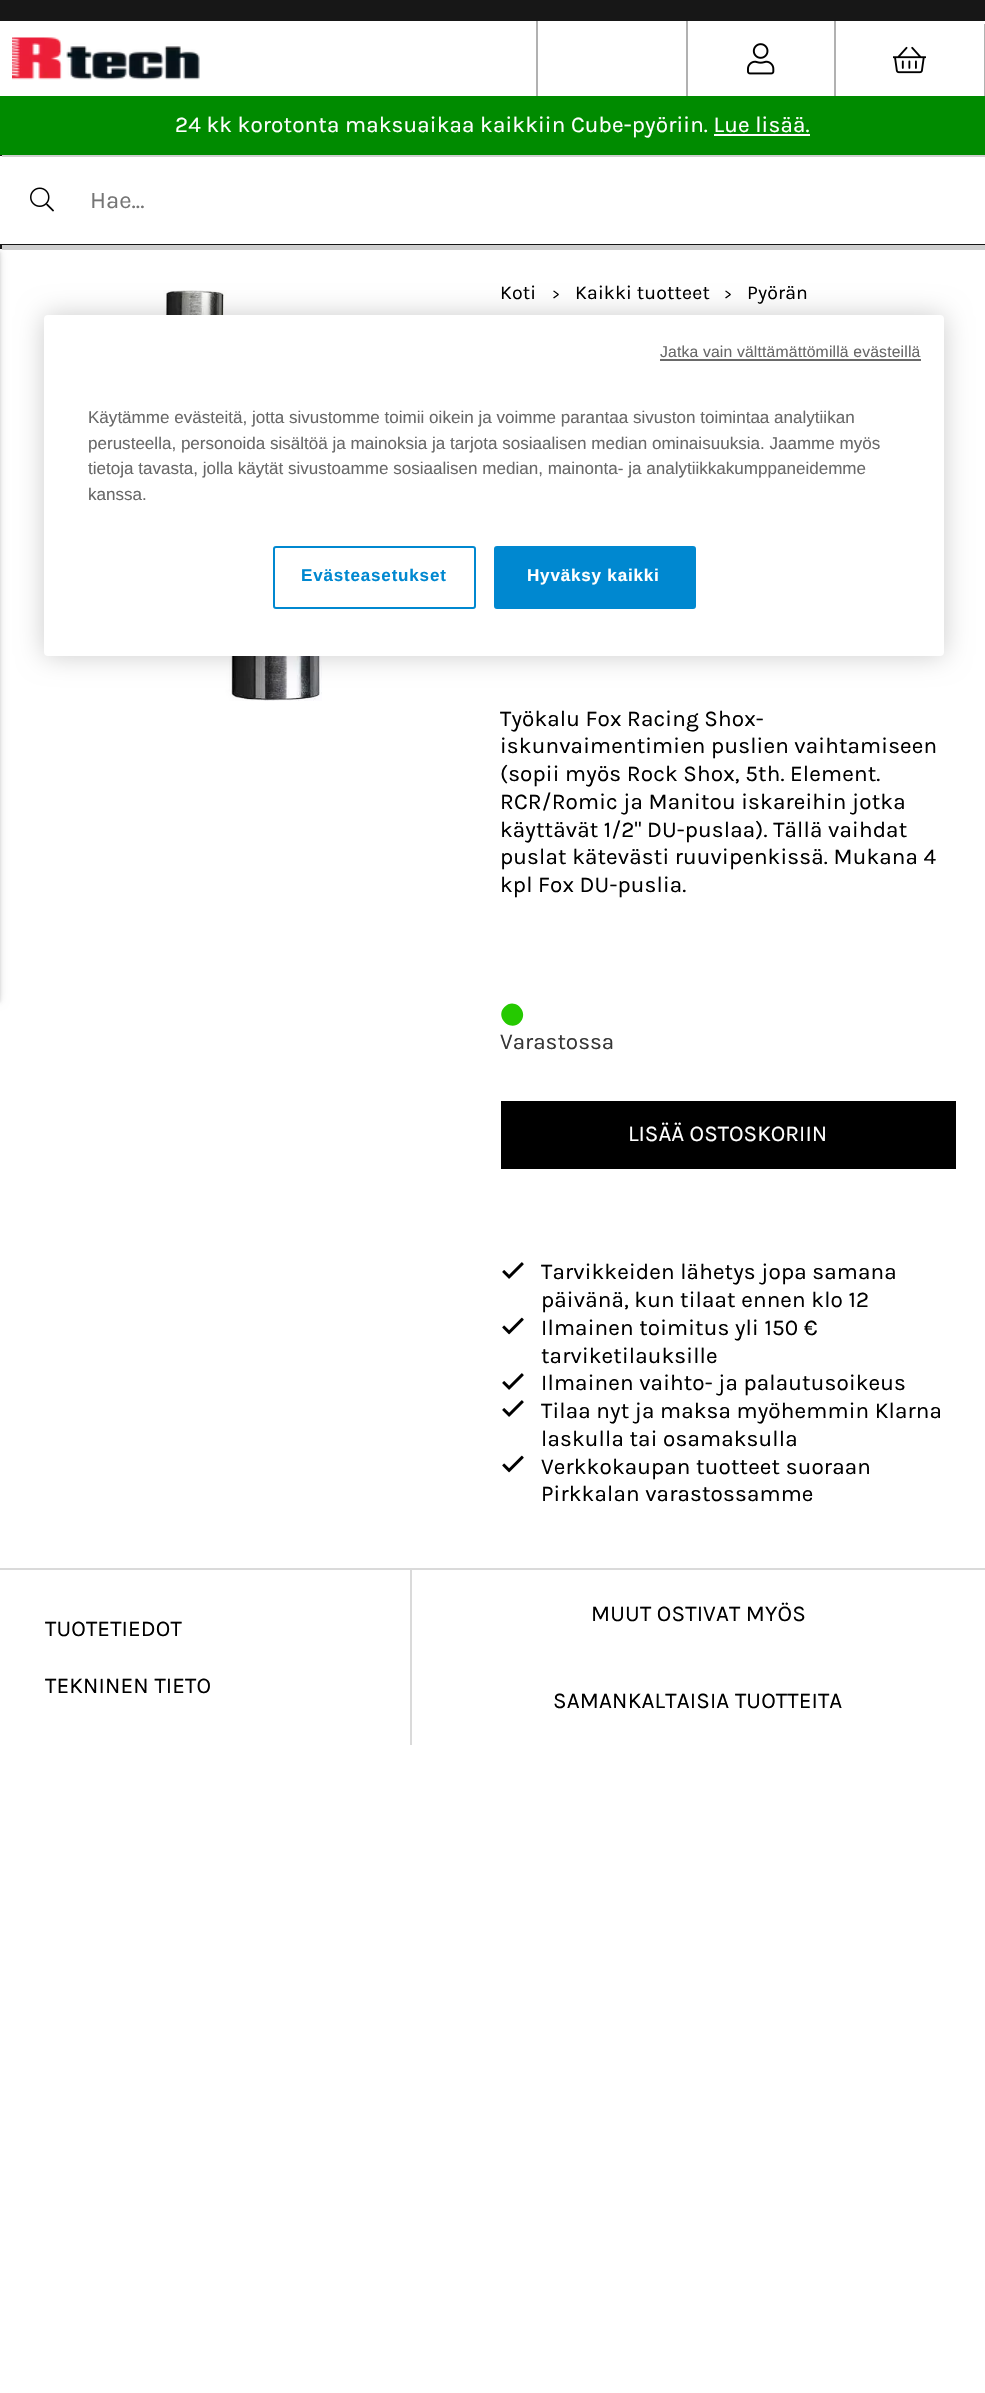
#include "include/core/SkBlurTypes.h"
#include "include/core/SkCanvas.h"
#include "include/core/SkData.h"
#include "include/core/SkFont.h"
#include "include/core/SkFontMgr.h"
#include "include/core/SkImage.h"
#include "include/core/SkMaskFilter.h"
#include "include/core/SkPaint.h"
#include "include/core/SkPathBuilder.h"
#include "include/core/SkTextBlob.h"
#include "include/effects/SkDashPathEffect.h"
#include "include/effects/SkGradientShader.h"
#include "include/utils/SkParsePath.h"

extern sk_sp<SkFontMgr> fontMgr;

void draw(SkCanvas* canvas) {
  SkPaint p;
  p.setAntiAlias(true);
  auto spacedText = [&](const char* s, float x, float y, const SkFont& font, const SkPaint& ink, float letter, float word) {
    std::vector<SkGlyphID> glyphs(font.countText(s, strlen(s), SkTextEncoding::kUTF8));
    std::vector<float> xs(glyphs.size());
    font.textToGlyphs(s, strlen(s), SkTextEncoding::kUTF8, glyphs);
    font.getXPos(glyphs, xs, x);
    float extra = 0;
    for (size_t i = 0; i < glyphs.size(); i++) {
      xs[i] += extra;
      extra += letter + word * (glyphs[i] == font.unicharToGlyph(' '));
    }
    canvas->drawTextBlob(SkTextBlob::MakeFromPosHGlyphs(glyphs, xs, y, font), 0, 0, ink);
  };
  canvas->clear(SK_ColorWHITE);
  p.setColor(SkColorSetRGB(23, 23, 23));
  canvas->drawRect(SkRect::MakeLTRB(0, 0, 985, 21), p);
  p.setColor(SkColorSetRGB(177, 177, 177));
  canvas->drawRect(SkRect::MakeLTRB(536, 21, 538, 96), p);
  p.setColor(SkColorSetRGB(23, 23, 23));
  canvas->drawRect(SkRect::MakeLTRB(0, 155, 985, 249), p);
  p.setColor(SK_ColorWHITE);
  canvas->drawPath(SkPathBuilder().moveTo(2, 156).lineTo(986, 156).lineTo(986, 244).lineTo(0, 244).lineTo(0, 156).close().detach(), p);
  p.setColor(SkColorSetRGB(207, 207, 207));
  canvas->drawRect(SkRect::MakeLTRB(2, 245, 985, 250), p);
  p.setColor(SkColorSetARGB(31, 0, 0, 0));
  p.setMaskFilter(SkMaskFilter::MakeBlur(kNormal_SkBlurStyle, 4));
  canvas->drawRect(SkRect::MakeLTRB(-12, 251, 0, 1001), p);
  p.setMaskFilter(nullptr);
  p.setColor(SkColorSetARGB(36, 0, 0, 0));
  p.setMaskFilter(SkMaskFilter::MakeBlur(kNormal_SkBlurStyle, 1.5f));
  canvas->drawRect(SkRect::MakeLTRB(-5, 252, 0, 1002), p);
  p.setMaskFilter(nullptr);
  p.setColor(SkColorSetRGB(177, 177, 177));
  canvas->drawRect(SkRect::MakeLTRB(834, 21, 836, 96), p);
  canvas->drawRect(SkRect::MakeLTRB(686, 21, 688, 96), p);
  canvas->drawImageRect(SkImages::DeferredFromEncodedData(SkData::MakeFromFileName("images/1.png")), SkRect::MakeLTRB(747, 43, 775, 75), SkSamplingOptions());
  canvas->drawRect(SkRect::MakeLTRB(984, 24, 985, 96), p);
  canvas->drawImageRect(SkImages::DeferredFromEncodedData(SkData::MakeFromFileName("images/2.png")), SkRect::MakeLTRB(893, 46, 926, 74), SkSamplingOptions());
  canvas->drawImageRect(SkImages::DeferredFromEncodedData(SkData::MakeFromFileName("images/3.png")), SkRect::MakeLTRB(12, 37, 200, 80), SkSamplingOptions());
  p.setColor(SkColorSetRGB(0, 139, 0));
  canvas->drawRect(SkRect::MakeLTRB(0, 96, 985, 155), p);
  canvas->drawImageRect(SkImages::DeferredFromEncodedData(SkData::MakeFromFileName("images/4.png")), SkRect::MakeLTRB(30, 187, 54, 212), SkSamplingOptions());
  p.setColor(SkColorSetRGB(207, 207, 207));
  canvas->drawRect(SkRect::MakeLTRB(2, 155, 985, 157), p);
  canvas->drawImageRect(SkImages::DeferredFromEncodedData(SkData::MakeFromFileName("images/5.png")), SkRect::MakeLTRB(163, 290, 322, 701), SkSamplingOptions());
  p.setColor(SkColorSetRGB(37, 201, 0));
  canvas->drawPath(SkPathBuilder().moveTo(504.5f, 1007).cubicTo(514.5f, 996.5f, 530, 1012, 520, 1022.5f).cubicTo(510, 1032.5f, 494.5f, 1017, 504.5f, 1007).close().detach(), p);
  p.setColor(SK_ColorBLACK);
  canvas->drawRect(SkRect::MakeLTRB(501, 1101, 956, 1169), p);
  canvas->drawImageRect(SkImages::DeferredFromEncodedData(SkData::MakeFromFileName("images/6.png")), SkRect::MakeLTRB(502, 1262, 524, 1279), SkSamplingOptions());
  canvas->drawImageRect(SkImages::DeferredFromEncodedData(SkData::MakeFromFileName("images/7.png")), SkRect::MakeLTRB(502, 1317, 524, 1335), SkSamplingOptions());
  canvas->drawImageRect(SkImages::DeferredFromEncodedData(SkData::MakeFromFileName("images/6.png")), SkRect::MakeLTRB(502, 1373, 524, 1390), SkSamplingOptions());
  canvas->drawImageRect(SkImages::DeferredFromEncodedData(SkData::MakeFromFileName("images/6.png")), SkRect::MakeLTRB(502, 1400, 524, 1417), SkSamplingOptions());
  canvas->drawImageRect(SkImages::DeferredFromEncodedData(SkData::MakeFromFileName("images/7.png")), SkRect::MakeLTRB(502, 1455, 524, 1473), SkSamplingOptions());
  p.setColor(SkColorSetRGB(218, 218, 218));
  canvas->drawRect(SkRect::MakeLTRB(0, 1568, 985, 1570), p);
  canvas->drawRect(SkRect::MakeLTRB(410, 1569, 412, 1745), p);
  p.setColor(SkColorSetARGB(51, 0, 0, 0));
  p.setMaskFilter(SkMaskFilter::MakeBlur(kNormal_SkBlurStyle, 13.5f));
  canvas->drawRoundRect(SkRect::MakeLTRB(44, 315, 944, 656), 4, 4, p);
  p.setMaskFilter(nullptr);
  p.setColor(SK_ColorWHITE);
  canvas->drawRoundRect(SkRect::MakeLTRB(44, 315, 944, 656), 4, 4, p);
  p.setColor(SkColorSetRGB(105, 105, 105));
  canvas->drawRect(SkRect::MakeLTRB(660, 359, 921, 361), p);
  p.setStyle(SkPaint::kStroke_Style);
  p.setStrokeWidth(2);
  p.setColor(SkColorSetRGB(0, 136, 208));
  canvas->drawRoundRect(SkRect::MakeLTRB(274, 547, 475, 608), 2, 2, p);
  p.setStyle(SkPaint::kFill_Style);
  canvas->drawRoundRect(SkRect::MakeLTRB(495, 547, 695, 608), 2, 2, p);
  p.setStyle(SkPaint::kStroke_Style);
  canvas->drawRoundRect(SkRect::MakeLTRB(495, 547, 695, 608), 2, 2, p);
  SkFont font1(fontMgr->matchFamilyStyle("Karla", SkFontStyle::Normal()), 22.5f);
  font1.setSubpixel(true);
  p.setStyle(SkPaint::kFill_Style);
  p.setColor(SK_ColorWHITE);
  spacedText("24 kk korotonta maksuaikaa kaikkiin Cube-pyöriin. Lue lisää.", 175, 132, font1, p, 0.15f, 0);
  p.setColor(SkColorSetRGB(255, 254, 254));
  canvas->drawRect(SkRect::MakeLTRB(714, 134, 810, 136), p);
  SkFont font2(fontMgr->matchFamilyStyle("Karla", SkFontStyle::Normal()), 24);
  font2.setSubpixel(true);
  p.setColor(SkColorSetRGB(117, 117, 117));
  canvas->drawString("Hae...", 90, 208, font2, p);
  SkFont font3(fontMgr->matchFamilyStyle("Karla", SkFontStyle::Normal()), 19.5f);
  font3.setSubpixel(true);
  p.setColor(SK_ColorBLACK);
  spacedText("Koti", 500, 299, font3, p, 0.15f, 0);
  SkFont font4(fontMgr->matchFamilyStyle("Karla", SkFontStyle::Normal()), 15);
  font4.setSubpixel(true);
  spacedText(">", 552, 299, font4, p, 0.15f, 0);
  spacedText("Kaikki tuotteet", 575, 299, font3, p, 0.15f, 0);
  spacedText(">", 724, 299, font4, p, 0.15f, 0);
  spacedText("Pyörän", 747, 299, font3, p, 0.15f, 0);
  spacedText("Työkalu Fox Racing Shox-", 500, 726, font1, p, 0.15f, 0);
  spacedText("iskunvaimentimien puslien vaihtamiseen", 500, 753, font1, p, 0.15f, 0);
  spacedText("(sopii myös Rock Shox, 5th. Element.", 500, 781, font1, p, 0.15f, 0);
  spacedText("RCR/Romic ja Manitou iskareihin jotka", 500, 809, font1, p, 0.15f, 0);
  spacedText("käyttävät 1/2\" DU-puslaa). Tällä vaihdat", 500, 837, font1, p, 0.15f, 0);
  spacedText("puslat kätevästi ruuvipenkissä. Mukana 4", 500, 864, font1, p, 0.15f, 0);
  spacedText("kpl Fox DU-puslia.", 500, 892, font1, p, 0.15f, 0);
  p.setColor(SkColorSetRGB(54, 54, 54));
  canvas->drawString("Varastossa", 500, 1049, font1, p);
  p.setColor(SK_ColorWHITE);
  canvas->drawString("LISÄÄ OSTOSKORIIN", 628, 1141, font1, p);
  p.setColor(SK_ColorBLACK);
  spacedText("Tarvikkeiden lähetys jopa samana", 541, 1279, font1, p, 0.15f, 0);
  spacedText("päivänä, kun tilaat ennen klo 12", 541, 1307, font1, p, 0.15f, 0);
  spacedText("Ilmainen toimitus yli 150 €", 541, 1335, font1, p, 0.15f, 0);
  spacedText("tarviketilauksille", 541, 1363, font1, p, 0.15f, 0);
  spacedText("Ilmainen vaihto- ja palautusoikeus", 541, 1390, font1, p, 0.15f, 0);
  spacedText("Tilaa nyt ja maksa myöhemmin Klarna", 541, 1418, font1, p, 0.15f, 0);
  spacedText("laskulla tai osamaksulla", 541, 1446, font1, p, 0.15f, 0);
  spacedText("Verkkokaupan tuotteet suoraan", 541, 1474, font1, p, 0.15f, 0);
  spacedText("Pirkkalan varastossamme", 541, 1501, font1, p, 0.15f, 0);
  spacedText("TUOTETIEDOT", 45, 1636, font1, p, 0.15f, 0);
  spacedText("TEKNINEN TIETO", 45, 1693, font1, p, 0.15f, 0);
  spacedText("MUUT OSTIVAT MYÖS", 591, 1621, font1, p, 0.15f, 0);
  spacedText("SAMANKALTAISIA TUOTTEITA", 553, 1708, font1, p, 0.15f, 0);
  SkFont font5(fontMgr->matchFamilyStyle("Liberation Sans", SkFontStyle::Normal()), 15.75f);
  font5.setSubpixel(true);
  p.setColor(SkColorSetRGB(105, 105, 105));
  spacedText("Jatka vain välttämättömillä evästeillä", 660, 357, font5, p, 0.15f, 0);
  SkFont font6(fontMgr->matchFamilyStyle("Liberation Sans", SkFontStyle::Normal()), 17.05f);
  font6.setSubpixel(true);
  canvas->drawString("Käytämme evästeitä, jotta sivustomme toimii oikein ja voimme parantaa sivuston toimintaa analytiikan", 88, 423, font6, p);
  canvas->drawString("perusteella, personoida sisältöä ja mainoksia ja tarjota sosiaalisen median ominaisuuksia. Jaamme myös", 88, 449, font6, p);
  canvas->drawString("tietoja tavasta, jolla käytät sivustoamme sosiaalisen median, mainonta- ja analytiikkakumppaneidemme", 88, 474, font6, p);
  canvas->drawString("kanssa.", 88, 500, font6, p);
  SkFont font7(fontMgr->matchFamilyStyle("Liberation Sans", SkFontStyle::Bold()), 17.05f);
  font7.setSubpixel(true);
  p.setColor(SkColorSetRGB(0, 136, 208));
  spacedText("Evästeasetukset", 301, 581, font7, p, 0.8f, 0);
  p.setColor(SK_ColorWHITE);
  spacedText("Hyväksy kaikki", 527, 581, font7, p, 0.8f, 0);
}
